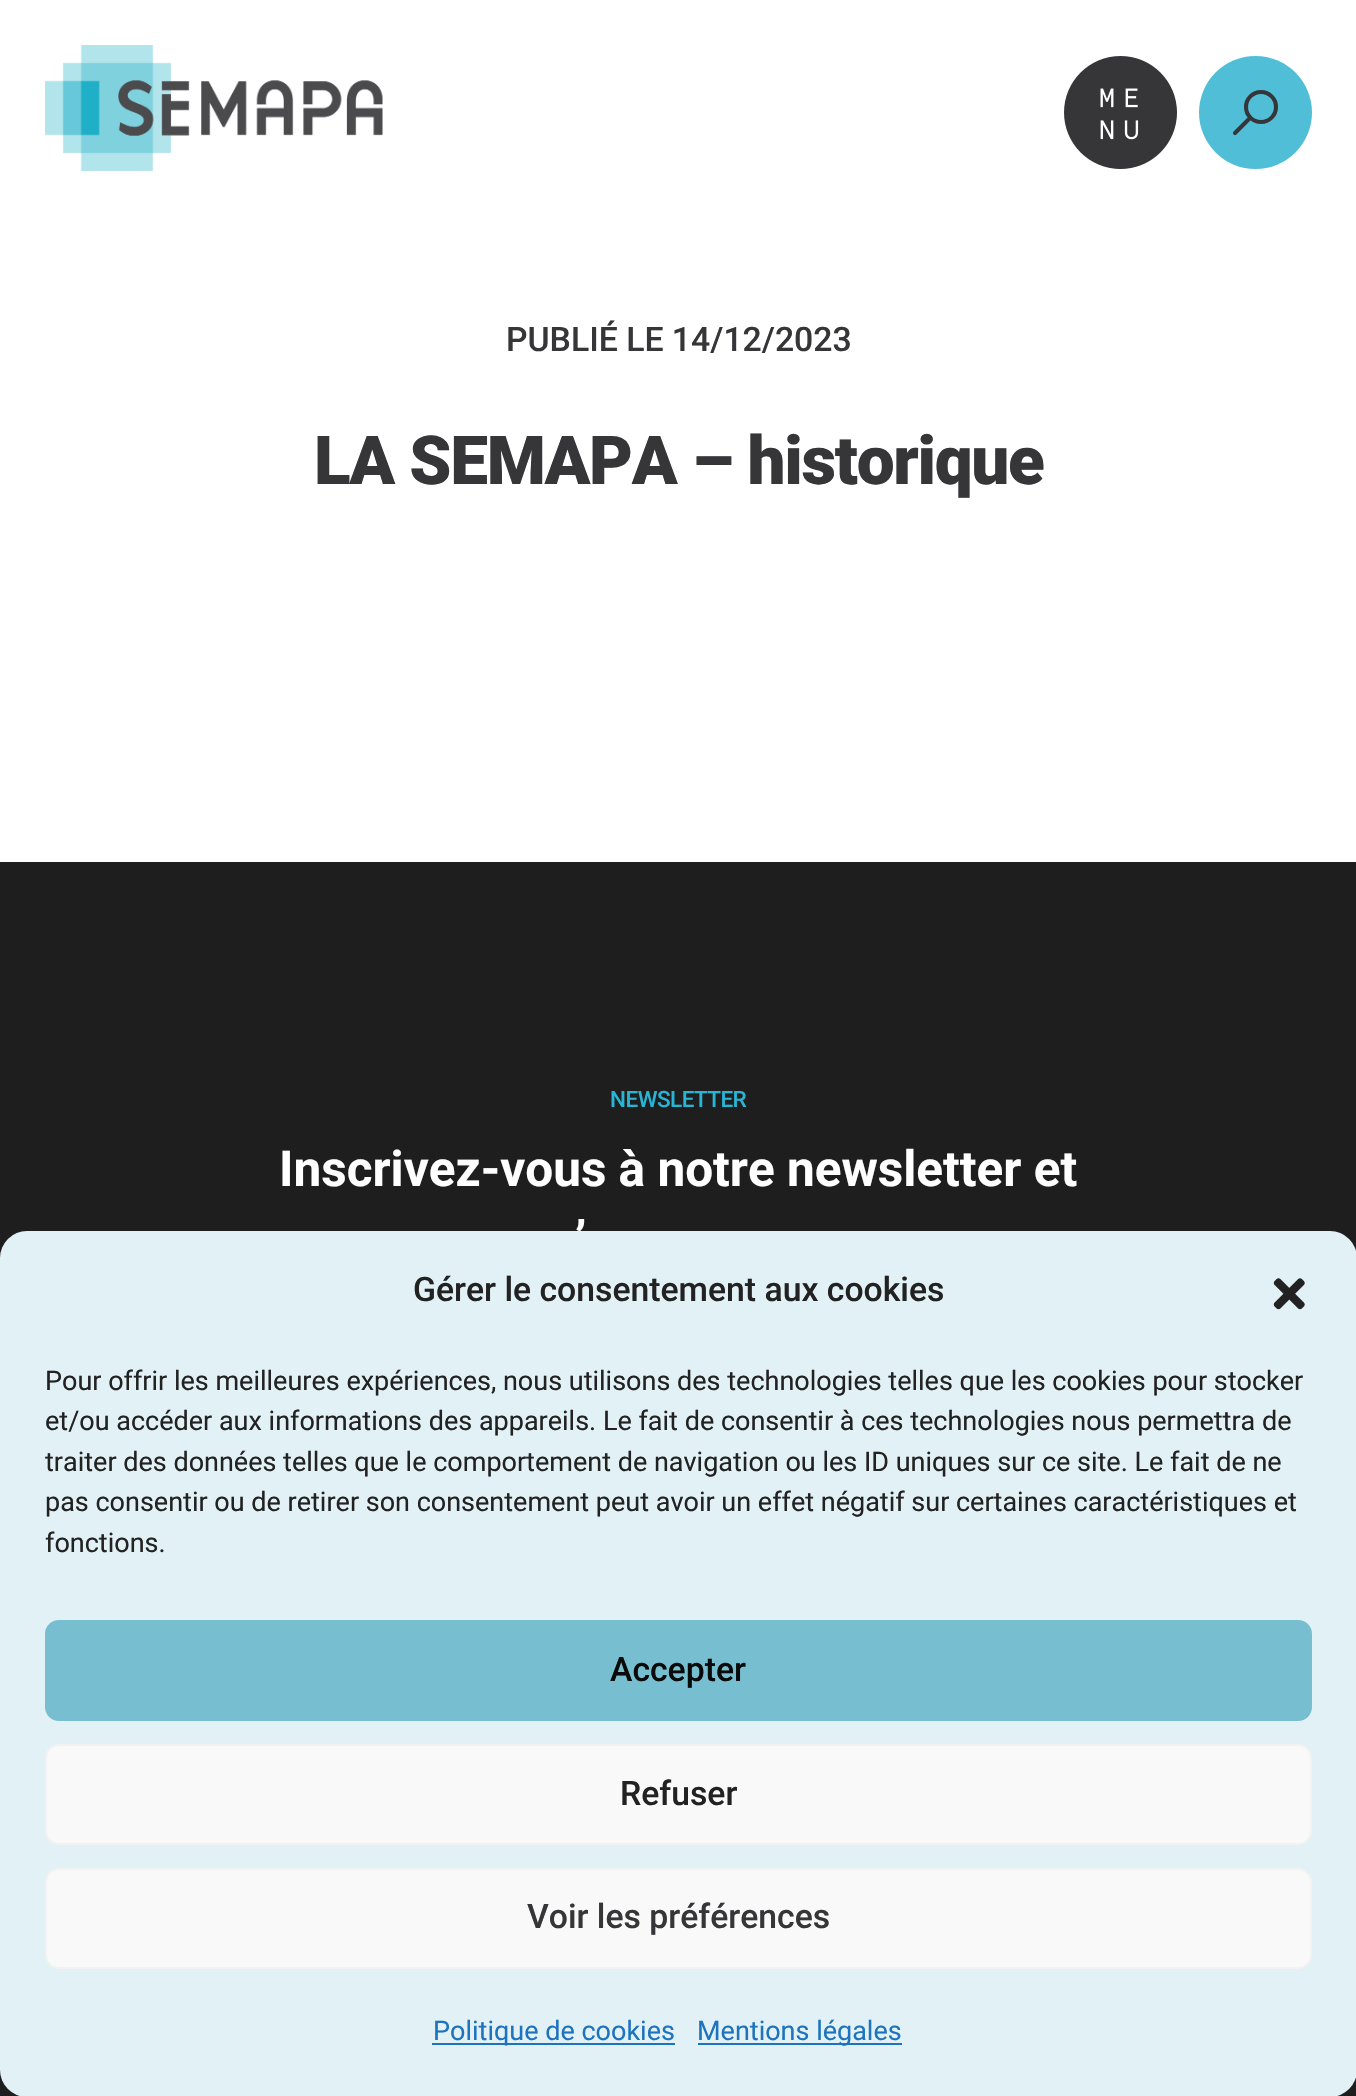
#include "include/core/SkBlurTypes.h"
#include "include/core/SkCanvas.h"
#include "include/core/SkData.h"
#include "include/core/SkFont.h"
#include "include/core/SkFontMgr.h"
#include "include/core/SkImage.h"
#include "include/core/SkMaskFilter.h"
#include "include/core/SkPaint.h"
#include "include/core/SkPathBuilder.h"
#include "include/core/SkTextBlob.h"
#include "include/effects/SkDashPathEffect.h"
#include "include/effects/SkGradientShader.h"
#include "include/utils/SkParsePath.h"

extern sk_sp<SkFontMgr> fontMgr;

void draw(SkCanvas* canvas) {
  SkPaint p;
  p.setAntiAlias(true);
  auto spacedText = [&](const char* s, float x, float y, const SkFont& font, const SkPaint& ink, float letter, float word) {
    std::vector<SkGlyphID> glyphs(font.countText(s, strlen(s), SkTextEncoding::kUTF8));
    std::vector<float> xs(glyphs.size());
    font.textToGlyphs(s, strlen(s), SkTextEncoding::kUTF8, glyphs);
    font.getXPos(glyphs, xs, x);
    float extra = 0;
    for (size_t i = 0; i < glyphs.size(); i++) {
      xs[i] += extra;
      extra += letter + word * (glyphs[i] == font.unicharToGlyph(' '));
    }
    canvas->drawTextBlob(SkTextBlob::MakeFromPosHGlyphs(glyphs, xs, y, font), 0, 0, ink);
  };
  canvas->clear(SK_ColorWHITE);
  canvas->drawImageRect(SkImages::DeferredFromEncodedData(SkData::MakeFromFileName("images/1.png")), SkRect::MakeLTRB(45, 45, 383, 171), SkSamplingOptions());
  canvas->drawImageRect(SkImages::DeferredFromEncodedData(SkData::MakeFromFileName("images/2.png")), SkRect::MakeLTRB(1064, 56, 1177, 169), SkSamplingOptions());
  p.setColor(SkColorSetRGB(80, 190, 215));
  canvas->drawCircle(1255.5f, 112.5f, 56.5f, p);
  p.setStyle(SkPaint::kStroke_Style);
  p.setStrokeWidth(4.1f);
  p.setColor(SkColorSetRGB(54, 54, 56));
  canvas->drawCircle(1261, 107, 15, p);
  p.setStrokeCap(SkPaint::kRound_Cap);
  p.setStrokeJoin(SkPaint::kRound_Join);
  canvas->drawPath(SkPathBuilder().moveTo(1250, 118).lineTo(1235, 133).detach(), p);
  p.setStyle(SkPaint::kFill_Style);
  p.setColor(SkColorSetRGB(30, 30, 30));
  canvas->drawRect(SkRect::MakeLTRB(0, 862, 1356, 2096), p);
  SkFont font1(fontMgr->matchFamilyStyle("Roboto", SkFontStyle(500, SkFontStyle::kNormal_Width, SkFontStyle::kUpright_Slant)), 33.75f);
  font1.setSubpixel(true);
  p.setColor(SkColorSetRGB(54, 54, 56));
  canvas->drawString("PUBLIÉ LE 14/12/2023", 506, 351, font1, p);
  SkFont font2(fontMgr->matchFamilyStyle("Roboto", SkFontStyle(900, SkFontStyle::kNormal_Width, SkFontStyle::kUpright_Slant)), 67.5f);
  font2.setSubpixel(true);
  spacedText("LA SEMAPA – historique", 314, 484, font2, p, -1.35f, 0);
  SkFont font3(fontMgr->matchFamilyStyle("Roboto", SkFontStyle(500, SkFontStyle::kNormal_Width, SkFontStyle::kUpright_Slant)), 22.5f);
  font3.setSubpixel(true);
  p.setColor(SkColorSetRGB(40, 180, 213));
  spacedText("NEWSLETTER", 610, 1107, font3, p, -0.5f, 0);
  SkFont font4(fontMgr->matchFamilyStyle("Roboto", SkFontStyle::Bold()), 49.5f);
  font4.setSubpixel(true);
  p.setColor(SK_ColorWHITE);
  canvas->drawString("Inscrivez-vous à notre newsletter et", 279, 1186, font4, p);
  canvas->drawString("’", 575, 1256, font4, p);
  p.setColor(SkColorSetRGB(225, 241, 246));
  canvas->drawRoundRect(SkRect::MakeLTRB(0, 1231, 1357, 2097), 27, 27, p);
  p.setColor(SkColorSetRGB(34, 34, 34));
  canvas->drawString("Gérer le consentement aux cookies", 413, 1301, font1, p);
  canvas->drawImageRect(SkImages::DeferredFromEncodedData(SkData::MakeFromFileName("images/3.png")), SkRect::MakeLTRB(1273, 1278, 1305, 1310), SkSamplingOptions());
  SkFont font5(fontMgr->matchFamilyStyle("Roboto", SkFontStyle::Normal()), 27);
  font5.setSubpixel(true);
  canvas->drawString("Pour offrir les meilleures expériences, nous utilisons des technologies telles que les cookies pour stocker", 45, 1390, font5, p);
  canvas->drawString("et/ou accéder aux informations des appareils. Le fait de consentir à ces technologies nous permettra de", 45, 1430, font5, p);
  canvas->drawString("traiter des données telles que le comportement de navigation ou les ID uniques sur ce site. Le fait de ne", 45, 1471, font5, p);
  canvas->drawString("pas consentir ou de retirer son consentement peut avoir un effet négatif sur certaines caractéristiques et", 45, 1511, font5, p);
  canvas->drawString("fonctions.", 45, 1552, font5, p);
  p.setColor(SkColorSetRGB(119, 191, 208));
  canvas->drawRoundRect(SkRect::MakeLTRB(46, 1621, 1311, 1720), 13, 13, p);
  p.setStyle(SkPaint::kStroke_Style);
  p.setStrokeWidth(2);
  p.setStrokeCap(SkPaint::kButt_Cap);
  p.setStrokeJoin(SkPaint::kMiter_Join);
  canvas->drawRoundRect(SkRect::MakeLTRB(46, 1621, 1311, 1720), 13, 13, p);
  p.setStyle(SkPaint::kFill_Style);
  p.setColor(SkColorSetRGB(10, 10, 10));
  canvas->drawString("Accepter", 610, 1681, font1, p);
  p.setColor(SkColorSetRGB(249, 249, 249));
  canvas->drawRoundRect(SkRect::MakeLTRB(46, 1745, 1311, 1844), 13, 13, p);
  p.setStyle(SkPaint::kStroke_Style);
  p.setColor(SkColorSetRGB(242, 242, 242));
  canvas->drawRoundRect(SkRect::MakeLTRB(46, 1745, 1311, 1844), 13, 13, p);
  p.setStyle(SkPaint::kFill_Style);
  p.setColor(SkColorSetRGB(34, 34, 34));
  canvas->drawString("Refuser", 620, 1805, font1, p);
  p.setColor(SkColorSetRGB(249, 249, 249));
  canvas->drawRoundRect(SkRect::MakeLTRB(46, 1869, 1311, 1968), 13, 13, p);
  p.setStyle(SkPaint::kStroke_Style);
  p.setColor(SkColorSetRGB(242, 242, 242));
  canvas->drawRoundRect(SkRect::MakeLTRB(46, 1869, 1311, 1968), 13, 13, p);
  p.setStyle(SkPaint::kFill_Style);
  p.setColor(SkColorSetRGB(54, 54, 56));
  canvas->drawString("Voir les préférences", 527, 1928, font1, p);
  p.setColor(SkColorSetRGB(30, 115, 190));
  canvas->drawRect(SkRect::MakeLTRB(432, 2043, 675, 2045), p);
  canvas->drawString("Politique de cookies", 433, 2040, font5, p);
  canvas->drawRect(SkRect::MakeLTRB(698, 2043, 902, 2045), p);
  canvas->drawString("Mentions légales", 697, 2040, font5, p);
}
